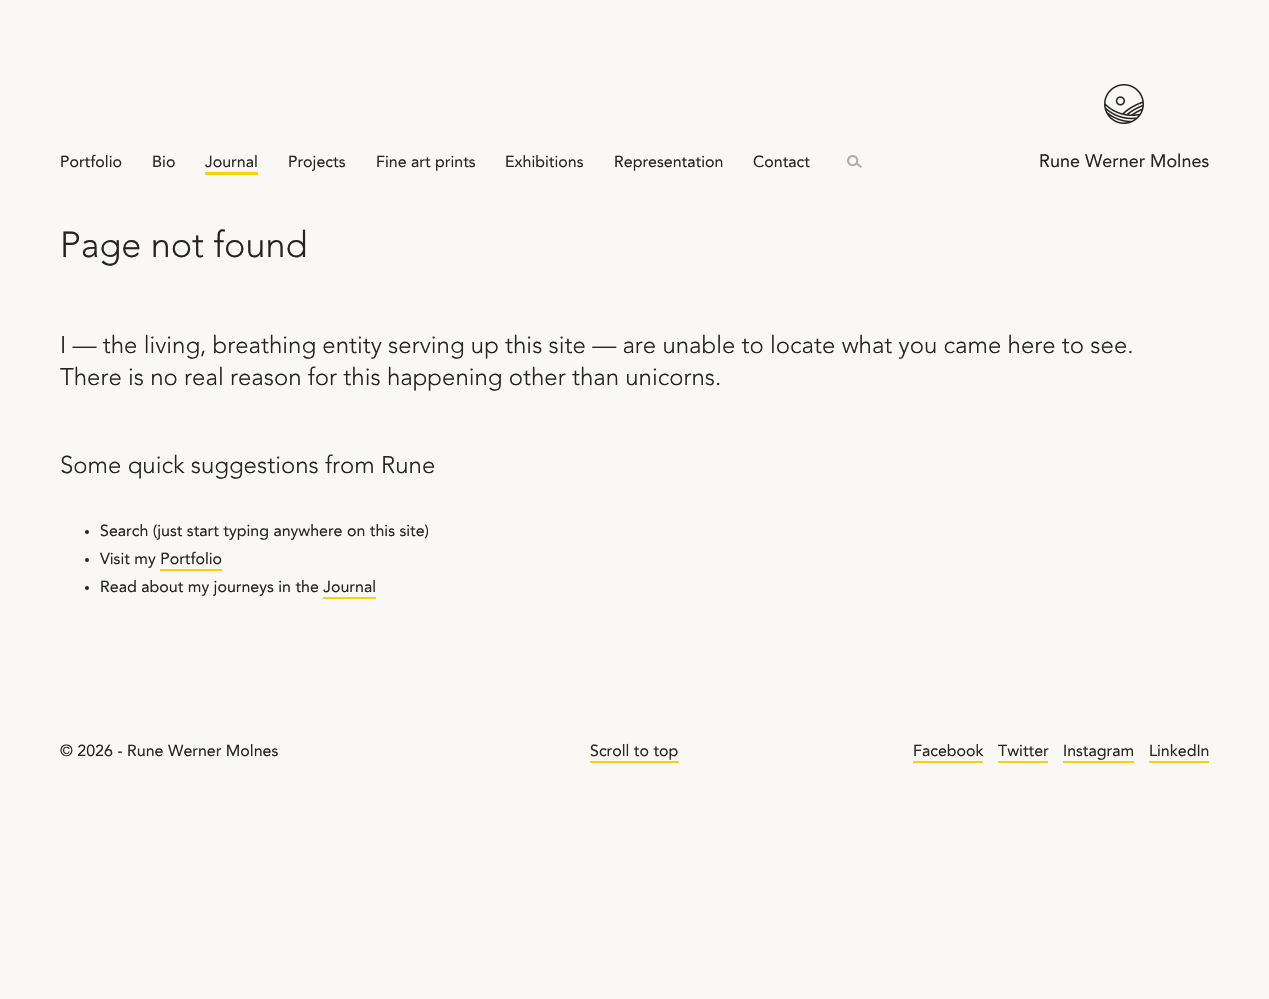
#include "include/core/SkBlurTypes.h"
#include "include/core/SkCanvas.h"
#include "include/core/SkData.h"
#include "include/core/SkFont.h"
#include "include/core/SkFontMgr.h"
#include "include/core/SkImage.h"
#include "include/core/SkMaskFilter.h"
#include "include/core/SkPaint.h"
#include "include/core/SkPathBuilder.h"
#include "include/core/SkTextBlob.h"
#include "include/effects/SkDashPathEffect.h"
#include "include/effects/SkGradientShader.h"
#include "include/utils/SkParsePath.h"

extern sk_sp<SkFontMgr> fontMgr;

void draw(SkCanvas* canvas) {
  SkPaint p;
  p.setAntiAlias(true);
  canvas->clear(SkColorSetRGB(249, 248, 245));
  p.setColor(SkColorSetRGB(245, 211, 12));
  canvas->drawRect(SkRect::MakeLTRB(205, 172, 258, 175), p);
  canvas->drawImageRect(SkImages::DeferredFromEncodedData(SkData::MakeFromFileName("images/1.png")), SkRect::MakeLTRB(847, 155, 862, 168), SkSamplingOptions());
  canvas->drawImageRect(SkImages::DeferredFromEncodedData(SkData::MakeFromFileName("images/2.png")), SkRect::MakeLTRB(1104, 84, 1144, 124), SkSamplingOptions());
  p.setColor(SkColorSetRGB(37, 36, 35));
  canvas->drawCircle(87, 532, 2, p);
  canvas->drawCircle(87, 560, 2, p);
  p.setColor(SkColorSetRGB(245, 211, 12));
  canvas->drawRect(SkRect::MakeLTRB(160, 569, 222, 571), p);
  p.setColor(SkColorSetRGB(37, 36, 35));
  canvas->drawCircle(87, 588, 2, p);
  p.setColor(SkColorSetRGB(245, 211, 12));
  canvas->drawRect(SkRect::MakeLTRB(323, 597, 376, 599), p);
  canvas->drawRect(SkRect::MakeLTRB(590, 761, 679, 763), p);
  canvas->drawRect(SkRect::MakeLTRB(913, 761, 983, 763), p);
  canvas->drawRect(SkRect::MakeLTRB(998, 761, 1048, 763), p);
  canvas->drawRect(SkRect::MakeLTRB(1063, 761, 1134, 763), p);
  canvas->drawRect(SkRect::MakeLTRB(1149, 761, 1209, 763), p);
  SkFont font1(fontMgr->matchFamilyStyle("Avenir", SkFontStyle::Normal()), 16);
  font1.setSubpixel(true);
  p.setColor(SkColorSetRGB(37, 36, 35));
  canvas->drawString("Portfolio", 60, 167, font1, p);
  canvas->drawString("Bio", 152, 167, font1, p);
  canvas->drawString("Journal", 205, 167, font1, p);
  canvas->drawString("Projects", 288, 167, font1, p);
  canvas->drawString("Fine art prints", 376, 167, font1, p);
  canvas->drawString("Exhibitions", 505, 167, font1, p);
  canvas->drawString("Representation", 614, 167, font1, p);
  canvas->drawString("Contact", 753, 167, font1, p);
  SkFont font2(fontMgr->matchFamilyStyle("Avenir", SkFontStyle::Normal()), 18);
  font2.setSubpixel(true);
  canvas->drawString("Rune Werner Molnes", 1039, 167, font2, p);
  SkFont font3(fontMgr->matchFamilyStyle("Avenir", SkFontStyle(300, SkFontStyle::kNormal_Width, SkFontStyle::kUpright_Slant)), 36);
  font3.setSubpixel(true);
  canvas->drawString("Page not found", 60, 257, font3, p);
  SkFont font4(fontMgr->matchFamilyStyle("Avenir", SkFontStyle(300, SkFontStyle::kNormal_Width, SkFontStyle::kUpright_Slant)), 24);
  font4.setSubpixel(true);
  canvas->drawString("I — the living, breathing entity serving up this site — are unable to locate what you came here to see.", 60, 353, font4, p);
  canvas->drawString("There is no real reason for this happening other than unicorns.", 60, 385, font4, p);
  canvas->drawString("Some quick suggestions from Rune", 60, 473, font4, p);
  canvas->drawString("Search (just start typing anywhere on this site)", 100, 536, font1, p);
  canvas->drawString("Visit my Portfolio", 100, 564, font1, p);
  canvas->drawString("Read about my journeys in the Journal", 100, 592, font1, p);
  canvas->drawString("© 2026 - Rune Werner Molnes", 60, 756, font1, p);
  canvas->drawString("Scroll to top", 590, 756, font1, p);
  canvas->drawString("Facebook", 913, 756, font1, p);
  canvas->drawString("Twitter", 998, 756, font1, p);
  canvas->drawString("Instagram", 1063, 756, font1, p);
  canvas->drawString("LinkedIn", 1149, 756, font1, p);
}
